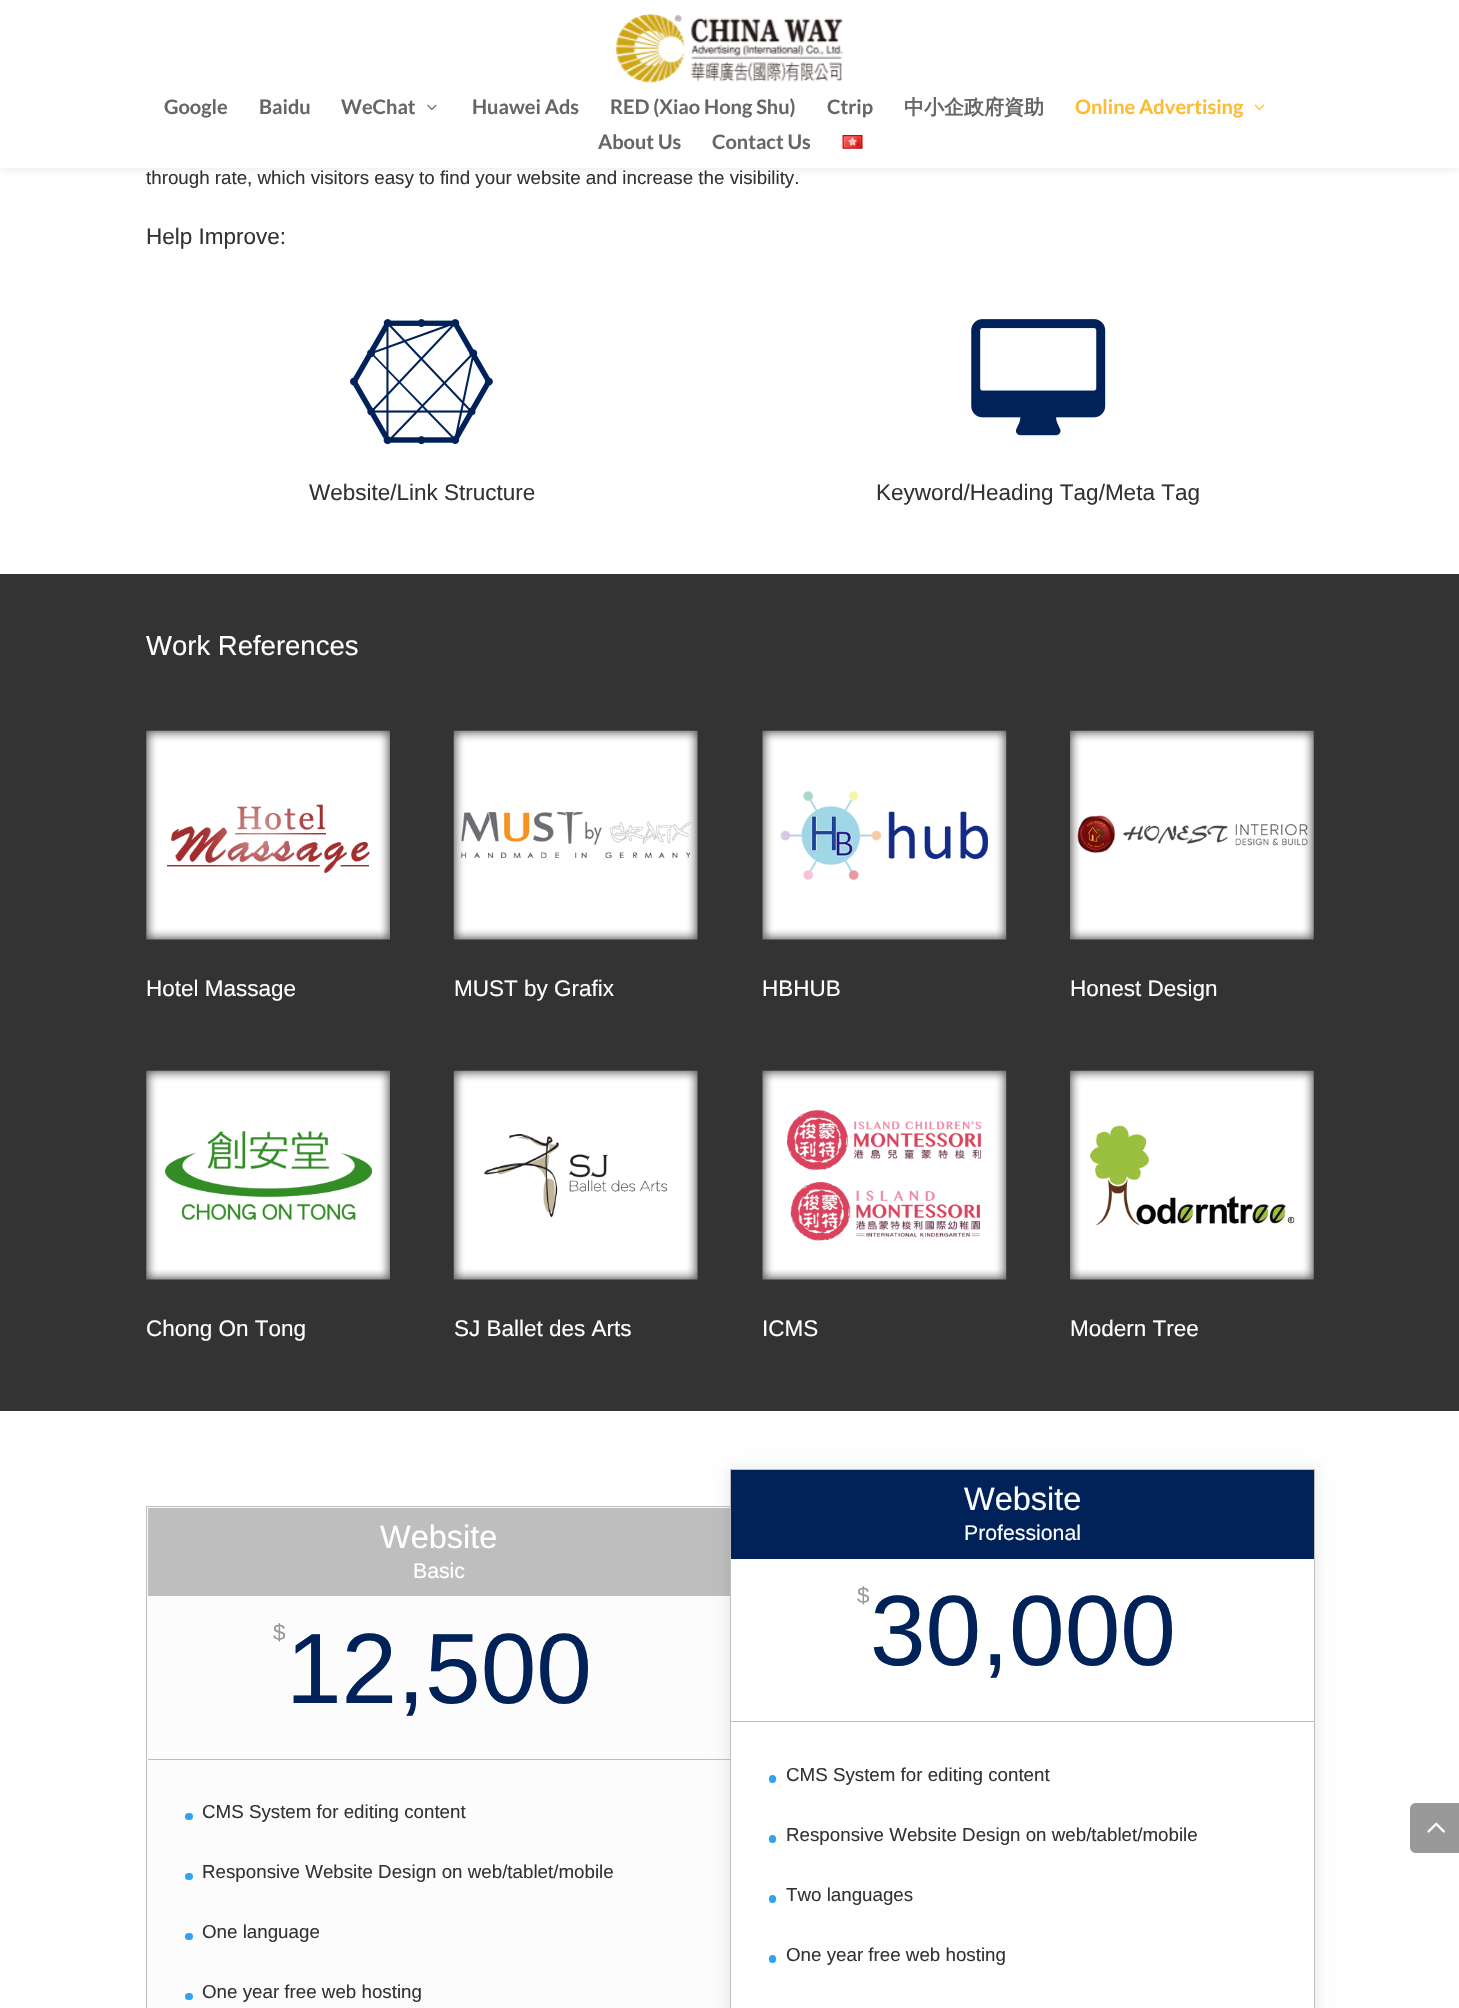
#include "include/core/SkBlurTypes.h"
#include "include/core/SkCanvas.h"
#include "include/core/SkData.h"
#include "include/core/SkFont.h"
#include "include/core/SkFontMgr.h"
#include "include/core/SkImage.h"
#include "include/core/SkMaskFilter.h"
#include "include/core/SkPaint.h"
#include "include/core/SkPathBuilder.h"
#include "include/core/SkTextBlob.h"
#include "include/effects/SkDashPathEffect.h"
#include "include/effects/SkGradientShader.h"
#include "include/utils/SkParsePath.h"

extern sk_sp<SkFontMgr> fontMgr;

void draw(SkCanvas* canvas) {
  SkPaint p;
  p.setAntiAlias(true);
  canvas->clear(SK_ColorWHITE);
  p.setColor(SkColorSetARGB(26, 0, 0, 0));
  p.setMaskFilter(SkMaskFilter::MakeBlur(kNormal_SkBlurStyle, 4.5f));
  canvas->drawRect(SkRect::MakeLTRB(0, 0, 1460, 168), p);
  p.setMaskFilter(nullptr);
  p.setColor(SK_ColorWHITE);
  canvas->drawRect(SkRect::MakeLTRB(0, 0, 1459, 168), p);
  canvas->drawImageRect(SkImages::DeferredFromEncodedData(SkData::MakeFromFileName("images/1.png")), SkRect::MakeLTRB(615, 13, 844, 83), SkSamplingOptions());
  canvas->drawImageRect(SkImages::DeferredFromEncodedData(SkData::MakeFromFileName("images/2.png")), SkRect::MakeLTRB(427, 104, 437, 110), SkSamplingOptions());
  canvas->drawImageRect(SkImages::DeferredFromEncodedData(SkData::MakeFromFileName("images/3.png")), SkRect::MakeLTRB(1254, 104, 1264, 110), SkSamplingOptions());
  canvas->drawImageRect(SkImages::DeferredFromEncodedData(SkData::MakeFromFileName("images/4.png")), SkRect::MakeLTRB(842, 135, 863, 149), SkSamplingOptions());
  canvas->drawImageRect(SkImages::DeferredFromEncodedData(SkData::MakeFromFileName("images/5.png")), SkRect::MakeLTRB(350, 319, 493, 445), SkSamplingOptions());
  canvas->drawImageRect(SkImages::DeferredFromEncodedData(SkData::MakeFromFileName("images/6.png")), SkRect::MakeLTRB(971, 319, 1106, 436), SkSamplingOptions());
  p.setColor(SkColorSetRGB(51, 51, 51));
  canvas->drawRect(SkRect::MakeLTRB(0, 574, 1459, 1411), p);
  canvas->drawImageRect(SkImages::DeferredFromEncodedData(SkData::MakeFromFileName("images/7.png")), SkRect::MakeLTRB(146, 730, 390, 940), SkSamplingOptions());
  canvas->drawImageRect(SkImages::DeferredFromEncodedData(SkData::MakeFromFileName("images/8.png")), SkRect::MakeLTRB(453, 730, 698, 940), SkSamplingOptions());
  canvas->drawImageRect(SkImages::DeferredFromEncodedData(SkData::MakeFromFileName("images/9.png")), SkRect::MakeLTRB(762, 730, 1007, 940), SkSamplingOptions());
  canvas->drawImageRect(SkImages::DeferredFromEncodedData(SkData::MakeFromFileName("images/10.png")), SkRect::MakeLTRB(1070, 730, 1314, 940), SkSamplingOptions());
  canvas->drawImageRect(SkImages::DeferredFromEncodedData(SkData::MakeFromFileName("images/11.png")), SkRect::MakeLTRB(146, 1070, 390, 1280), SkSamplingOptions());
  canvas->drawImageRect(SkImages::DeferredFromEncodedData(SkData::MakeFromFileName("images/12.png")), SkRect::MakeLTRB(453, 1070, 698, 1280), SkSamplingOptions());
  canvas->drawImageRect(SkImages::DeferredFromEncodedData(SkData::MakeFromFileName("images/13.png")), SkRect::MakeLTRB(762, 1070, 1007, 1280), SkSamplingOptions());
  canvas->drawImageRect(SkImages::DeferredFromEncodedData(SkData::MakeFromFileName("images/14.png")), SkRect::MakeLTRB(1070, 1070, 1314, 1280), SkSamplingOptions());
  p.setColor(SkColorSetRGB(252, 252, 252));
  canvas->drawRect(SkRect::MakeLTRB(146.5f, 1506.5f, 730.5f, 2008.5f), p);
  p.setStyle(SkPaint::kStroke_Style);
  p.setStrokeWidth(1);
  p.setColor(SkColorSetRGB(190, 190, 190));
  canvas->drawRect(SkRect::MakeLTRB(146.5f, 1506.5f, 730.5f, 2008.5f), p);
  p.setStyle(SkPaint::kFill_Style);
  canvas->drawRect(SkRect::MakeLTRB(148, 1508, 730, 1596), p);
  canvas->drawRect(SkRect::MakeLTRB(148, 1759, 730, 1760), p);
  p.setColor(SkColorSetRGB(46, 163, 242));
  canvas->drawRoundRect(SkRect::MakeLTRB(185, 1813, 193, 1820), 3.5f, 3.5f, p);
  canvas->drawRoundRect(SkRect::MakeLTRB(185, 1873, 193, 1880), 3.5f, 3.5f, p);
  canvas->drawRoundRect(SkRect::MakeLTRB(185, 1933, 193, 1940), 3.5f, 3.5f, p);
  canvas->drawRoundRect(SkRect::MakeLTRB(185, 1993, 193, 2000), 3.5f, 3.5f, p);
  p.setColor(SkColorSetARGB(26, 0, 0, 0));
  p.setMaskFilter(SkMaskFilter::MakeBlur(kNormal_SkBlurStyle, 7.5f));
  canvas->drawRect(SkRect::MakeLTRB(730, 1469, 1315, 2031), p);
  p.setMaskFilter(nullptr);
  p.setColor(SK_ColorWHITE);
  canvas->drawRect(SkRect::MakeLTRB(731, 1559, 1314, 2008), p);
  p.setStyle(SkPaint::kStroke_Style);
  p.setColor(SkColorSetRGB(190, 190, 190));
  canvas->drawRect(SkRect::MakeLTRB(730.5f, 1469.5f, 1314.5f, 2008.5f), p);
  p.setStyle(SkPaint::kFill_Style);
  p.setColor(SkColorSetRGB(0, 34, 89));
  canvas->drawRect(SkRect::MakeLTRB(731, 1470, 1314, 1559), p);
  p.setColor(SkColorSetRGB(190, 190, 190));
  canvas->drawRect(SkRect::MakeLTRB(731, 1721, 1314, 1722), p);
  p.setColor(SkColorSetRGB(46, 163, 242));
  canvas->drawRoundRect(SkRect::MakeLTRB(769, 1775, 776, 1783), 3.5f, 3.5f, p);
  canvas->drawRoundRect(SkRect::MakeLTRB(769, 1835, 776, 1843), 3.5f, 3.5f, p);
  canvas->drawRoundRect(SkRect::MakeLTRB(769, 1895, 776, 1903), 3.5f, 3.5f, p);
  canvas->drawRoundRect(SkRect::MakeLTRB(769, 1955, 776, 1963), 3.5f, 3.5f, p);
  p.setColor(SkColorSetRGB(153, 153, 153));
  canvas->drawPath(SkPathBuilder().moveTo(1416, 1803).lineTo(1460, 1803).lineTo(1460, 1853).lineTo(1416, 1853).cubicTo(1412.5f, 1853, 1410, 1850.5f, 1410, 1847).lineTo(1410, 1809).cubicTo(1410, 1805.5f, 1412.5f, 1803, 1416, 1803).close().detach(), p);
  canvas->drawImageRect(SkImages::DeferredFromEncodedData(SkData::MakeFromFileName("images/15.png")), SkRect::MakeLTRB(1427, 1822, 1445, 1833), SkSamplingOptions());
  SkFont font1(fontMgr->matchFamilyStyle("Lato", SkFontStyle::Bold()), 20);
  font1.setSubpixel(true);
  p.setColor(SkColorSetRGB(102, 102, 102));
  canvas->drawString("Google", 164, 114, font1, p);
  canvas->drawString("Baidu", 259, 114, font1, p);
  canvas->drawString("WeChat", 341, 114, font1, p);
  canvas->drawString("Huawei Ads", 472, 114, font1, p);
  canvas->drawString("RED (Xiao Hong Shu)", 610, 114, font1, p);
  canvas->drawString("Ctrip", 827, 114, font1, p);
  SkFont font2(fontMgr->matchFamilyStyle("WenQuanYi Zen Hei", SkFontStyle::Bold()), 20);
  font2.setSubpixel(true);
  canvas->drawString("中小企政府資助", 904, 114, font2, p);
  p.setColor(SkColorSetRGB(255, 186, 48));
  canvas->drawString("Online Advertising", 1075, 114, font1, p);
  p.setColor(SkColorSetRGB(102, 102, 102));
  canvas->drawString("About Us", 598, 149, font1, p);
  canvas->drawString("Contact Us", 712, 149, font1, p);
  SkFont font3(fontMgr->matchFamilyStyle("Liberation Sans", SkFontStyle::Normal()), 18.75f);
  font3.setSubpixel(true);
  p.setColor(SkColorSetRGB(51, 51, 51));
  canvas->drawString("through rate, which visitors easy to find your website and increase the visibility.", 146, 184, font3, p);
  SkFont font4(fontMgr->matchFamilyStyle("Liberation Sans", SkFontStyle::Normal()), 22.5f);
  font4.setSubpixel(true);
  canvas->drawString("Help Improve:", 146, 244, font4, p);
  canvas->drawString("Website/Link Structure", 309, 500, font4, p);
  canvas->drawString("Keyword/Heading Tag/Meta Tag", 876, 500, font4, p);
  SkFont font5(fontMgr->matchFamilyStyle("Liberation Sans", SkFontStyle::Normal()), 27.5f);
  font5.setSubpixel(true);
  p.setColor(SK_ColorWHITE);
  canvas->drawString("Work References", 146, 655, font5, p);
  canvas->drawString("Hotel Massage", 146, 996, font4, p);
  canvas->drawString("MUST by Grafix", 454, 996, font4, p);
  canvas->drawString("HBHUB", 762, 996, font4, p);
  canvas->drawString("Honest Design", 1070, 996, font4, p);
  canvas->drawString("Chong On Tong", 146, 1336, font4, p);
  canvas->drawString("SJ Ballet des Arts", 454, 1336, font4, p);
  canvas->drawString("ICMS", 762, 1336, font4, p);
  canvas->drawString("Modern Tree", 1070, 1336, font4, p);
  SkFont font6(fontMgr->matchFamilyStyle("Liberation Sans", SkFontStyle::Normal()), 32.5f);
  font6.setSubpixel(true);
  canvas->drawString("Website", 380, 1548, font6, p);
  SkFont font7(fontMgr->matchFamilyStyle("Liberation Sans", SkFontStyle::Normal()), 21.25f);
  font7.setSubpixel(true);
  canvas->drawString("Basic", 413, 1578, font7, p);
  p.setColor(SkColorSetRGB(153, 153, 153));
  canvas->drawString("$", 273, 1640, font4, p);
  SkFont font8(fontMgr->matchFamilyStyle("Liberation Sans", SkFontStyle::Normal()), 100);
  font8.setSubpixel(true);
  p.setColor(SkColorSetRGB(0, 34, 89));
  canvas->drawString("12,500", 286, 1703, font8, p);
  p.setColor(SkColorSetRGB(51, 51, 51));
  canvas->drawString("CMS System for editing content", 202, 1818, font3, p);
  canvas->drawString("Responsive Website Design on web/tablet/mobile", 202, 1878, font3, p);
  canvas->drawString("One language", 202, 1938, font3, p);
  canvas->drawString("One year free web hosting", 202, 1998, font3, p);
  p.setColor(SK_ColorWHITE);
  canvas->drawString("Website", 964, 1510, font6, p);
  canvas->drawString("Professional", 964, 1540, font7, p);
  p.setColor(SkColorSetRGB(153, 153, 153));
  canvas->drawString("$", 857, 1603, font4, p);
  p.setColor(SkColorSetRGB(0, 34, 89));
  canvas->drawString("30,000", 870, 1665, font8, p);
  p.setColor(SkColorSetRGB(51, 51, 51));
  canvas->drawString("CMS System for editing content", 786, 1781, font3, p);
  canvas->drawString("Responsive Website Design on web/tablet/mobile", 786, 1841, font3, p);
  canvas->drawString("Two languages", 786, 1901, font3, p);
  canvas->drawString("One year free web hosting", 786, 1961, font3, p);
}
